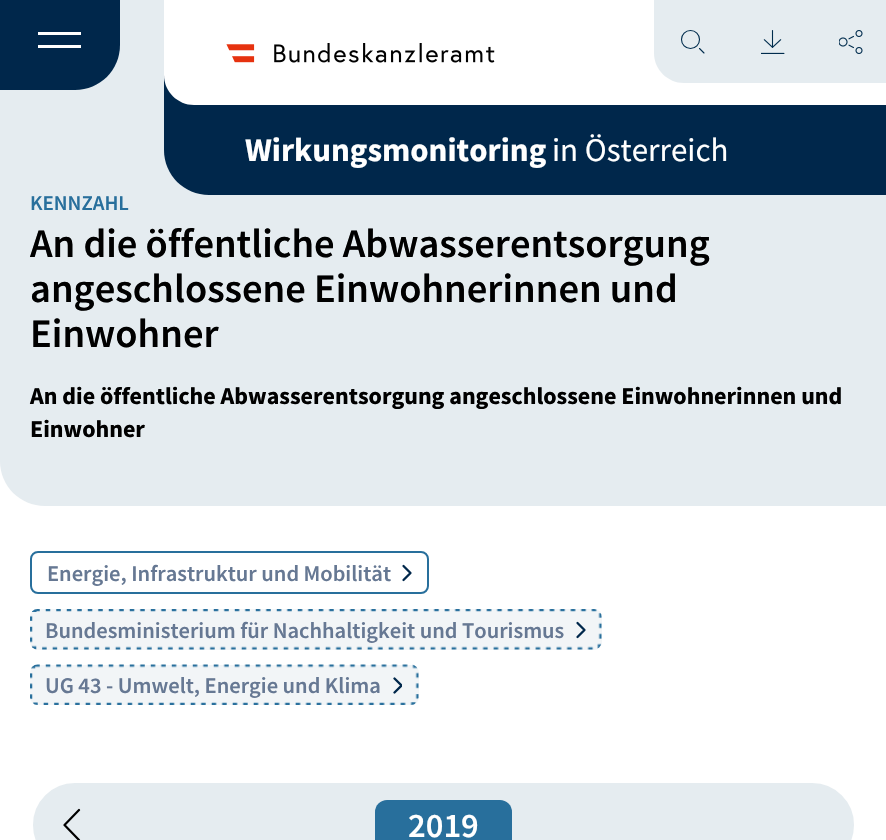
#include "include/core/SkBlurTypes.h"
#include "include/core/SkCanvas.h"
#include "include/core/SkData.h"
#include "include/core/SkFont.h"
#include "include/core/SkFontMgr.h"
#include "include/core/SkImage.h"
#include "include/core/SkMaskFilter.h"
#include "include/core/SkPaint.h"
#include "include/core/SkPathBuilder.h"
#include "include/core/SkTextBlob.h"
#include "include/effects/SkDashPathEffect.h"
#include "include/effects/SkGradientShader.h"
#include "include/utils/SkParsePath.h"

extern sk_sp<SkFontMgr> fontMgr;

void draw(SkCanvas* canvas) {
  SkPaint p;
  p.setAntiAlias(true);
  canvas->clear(SK_ColorWHITE);
  p.setColor(SkColorSetRGB(229, 236, 240));
  canvas->drawPath(SkPathBuilder().moveTo(0, -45).lineTo(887, -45).lineTo(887, 506).lineTo(45, 506).cubicTo(20, 506, 0, 486, 0, 461).close().detach(), p);
  p.setColor(SkColorSetRGB(0, 39, 75));
  canvas->drawPath(SkPathBuilder().moveTo(0, 0).lineTo(120, 0).lineTo(120, 45).cubicTo(120, 70, 100, 90, 75, 90).lineTo(0, 90).close().detach(), p);
  p.setColor(SK_ColorWHITE);
  canvas->drawRect(SkRect::MakeLTRB(38, 32, 81, 35), p);
  canvas->drawRect(SkRect::MakeLTRB(38, 45, 81, 48), p);
  p.setColor(SkColorSetRGB(0, 39, 75));
  canvas->drawPath(SkPathBuilder().moveTo(164, 0).lineTo(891, 0).lineTo(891, 195).lineTo(209, 195).cubicTo(184, 195, 164, 175, 164, 150).close().detach(), p);
  p.setColor(SK_ColorWHITE);
  canvas->drawPath(SkPathBuilder().moveTo(164, 0).lineTo(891, 0).lineTo(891, 105).lineTo(194, 105).cubicTo(177.5f, 105, 164, 91.5f, 164, 75).close().detach(), p);
  canvas->drawImageRect(SkImages::DeferredFromEncodedData(SkData::MakeFromFileName("images/1.png")), SkRect::MakeLTRB(226, 43, 495, 63), SkSamplingOptions());
  p.setColor(SkColorSetRGB(229, 236, 240));
  canvas->drawPath(SkPathBuilder().moveTo(654, 0).lineTo(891, 0).lineTo(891, 83).lineTo(684, 83).cubicTo(667.5f, 83, 654, 69.5f, 654, 53).close().detach(), p);
  p.setStyle(SkPaint::kStroke_Style);
  p.setStrokeWidth(1.1f);
  p.setStrokeCap(SkPaint::kRound_Cap);
  p.setStrokeJoin(SkPaint::kRound_Join);
  p.setColor(SkColorSetRGB(0, 44, 77));
  canvas->drawPath(SkPathBuilder().moveTo(704, 53).lineTo(699.5f, 48.5f).detach(), p);
  p.setStrokeCap(SkPaint::kButt_Cap);
  p.setStrokeJoin(SkPaint::kMiter_Join);
  canvas->drawCircle(690.5f, 39.5f, 9, p);
  canvas->drawImageRect(SkImages::DeferredFromEncodedData(SkData::MakeFromFileName("images/2.png")), SkRect::MakeLTRB(761, 30, 785, 54), SkSamplingOptions());
  canvas->drawImageRect(SkImages::DeferredFromEncodedData(SkData::MakeFromFileName("images/3.png")), SkRect::MakeLTRB(839, 30, 863, 54), SkSamplingOptions());
  p.setStrokeWidth(2);
  p.setColor(SkColorSetRGB(40, 111, 156));
  canvas->drawRoundRect(SkRect::MakeLTRB(31, 552, 428, 593), 7, 7, p);
  p.setStrokeWidth(2.3f);
  p.setStrokeCap(SkPaint::kRound_Cap);
  p.setStrokeJoin(SkPaint::kRound_Join);
  p.setColor(SkColorSetRGB(0, 39, 75));
  canvas->drawPath(SkPathBuilder().moveTo(403.5f, 566).lineTo(410.5f, 573).lineTo(403.5f, 580).detach(), p);
  p.setStyle(SkPaint::kFill_Style);
  p.setColor(SkColorSetRGB(242, 245, 247));
  canvas->drawRoundRect(SkRect::MakeLTRB(30, 609, 602, 650), 8, 8, p);
  canvas->drawImageRect(SkImages::DeferredFromEncodedData(SkData::MakeFromFileName("images/4.png")), SkRect::MakeLTRB(30, 609, 602, 650), SkSamplingOptions());
  p.setStyle(SkPaint::kStroke_Style);
  p.setColor(SkColorSetRGB(0, 39, 75));
  canvas->drawPath(SkPathBuilder().moveTo(577.5f, 623).lineTo(584.5f, 630).lineTo(577.5f, 637).detach(), p);
  p.setStyle(SkPaint::kFill_Style);
  p.setColor(SkColorSetRGB(242, 245, 247));
  canvas->drawRoundRect(SkRect::MakeLTRB(30, 665, 419, 705), 8, 8, p);
  canvas->drawImageRect(SkImages::DeferredFromEncodedData(SkData::MakeFromFileName("images/5.png")), SkRect::MakeLTRB(30, 664, 419, 705), SkSamplingOptions());
  canvas->save();
  canvas->clipRect(SkRect::MakeLTRB(393, 677, 402, 695));
  p.setStyle(SkPaint::kStroke_Style);
  p.setColor(SkColorSetRGB(0, 39, 75));
  canvas->drawPath(SkPathBuilder().moveTo(394.5f, 678.5f).lineTo(401.5f, 685.5f).lineTo(394.5f, 692.5f).detach(), p);
  canvas->restore();
  p.setStyle(SkPaint::kFill_Style);
  p.setColor(SkColorSetRGB(229, 236, 240));
  canvas->drawRoundRect(SkRect::MakeLTRB(31.5f, 781.5f, 855.5f, 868.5f), 43.5f, 43.5f, p);
  p.setStyle(SkPaint::kStroke_Style);
  p.setStrokeWidth(3);
  p.setStrokeCap(SkPaint::kButt_Cap);
  p.setStrokeJoin(SkPaint::kMiter_Join);
  p.setColor(SK_ColorWHITE);
  canvas->drawRoundRect(SkRect::MakeLTRB(31.5f, 781.5f, 855.5f, 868.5f), 43.5f, 43.5f, p);
  p.setStrokeWidth(2.2f);
  p.setStrokeCap(SkPaint::kRound_Cap);
  p.setStrokeJoin(SkPaint::kRound_Join);
  p.setColor(SK_ColorBLACK);
  canvas->drawPath(SkPathBuilder().moveTo(79, 840).lineTo(64.5f, 825).lineTo(79, 810).detach(), p);
  p.setStyle(SkPaint::kFill_Style);
  p.setColor(SkColorSetRGB(40, 111, 156));
  canvas->drawRoundRect(SkRect::MakeLTRB(375, 800, 512, 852), 12, 12, p);
  SkFont font1(fontMgr->matchFamilyStyle("Source Sans Pro", SkFontStyle::Bold()), 33);
  font1.setSubpixel(true);
  p.setColor(SK_ColorWHITE);
  canvas->drawString("Wirkungsmonitoring", 245, 161, font1, p);
  SkFont font2(fontMgr->matchFamilyStyle("Source Sans Pro", SkFontStyle::Normal()), 33);
  font2.setSubpixel(true);
  canvas->drawString("in Österreich", 552, 161, font2, p);
  SkFont font3(fontMgr->matchFamilyStyle("Source Sans Pro", SkFontStyle(600, SkFontStyle::kNormal_Width, SkFontStyle::kUpright_Slant)), 21);
  font3.setSubpixel(true);
  p.setColor(SkColorSetRGB(40, 111, 156));
  canvas->drawString("KENNZAHL", 30, 210, font3, p);
  SkFont font4(fontMgr->matchFamilyStyle("Source Sans Pro", SkFontStyle(600, SkFontStyle::kNormal_Width, SkFontStyle::kUpright_Slant)), 40.5f);
  font4.setSubpixel(true);
  p.setColor(SK_ColorBLACK);
  canvas->drawString("An die öffentliche Abwasserentsorgung", 30, 257, font4, p);
  canvas->drawString("angeschlossene Einwohnerinnen und", 30, 302, font4, p);
  canvas->drawString("Einwohner", 30, 347, font4, p);
  SkFont font5(fontMgr->matchFamilyStyle("Source Sans Pro", SkFontStyle::Bold()), 24);
  font5.setSubpixel(true);
  canvas->drawString("An die öffentliche Abwasserentsorgung angeschlossene Einwohnerinnen und", 30, 404, font5, p);
  canvas->drawString("Einwohner", 30, 437, font5, p);
  SkFont font6(fontMgr->matchFamilyStyle("Source Sans Pro", SkFontStyle(600, SkFontStyle::kNormal_Width, SkFontStyle::kUpright_Slant)), 22.5f);
  font6.setSubpixel(true);
  p.setColor(SkColorSetRGB(102, 120, 147));
  canvas->drawString("Energie, Infrastruktur und Mobilität", 47, 581, font6, p);
  canvas->drawString("Bundesministerium für Nachhaltigkeit und Tourismus", 45, 638, font6, p);
  canvas->drawString("UG 43 - Umwelt, Energie und Klima", 45, 693, font6, p);
  SkFont font7(fontMgr->matchFamilyStyle("Source Sans Pro", SkFontStyle(600, SkFontStyle::kNormal_Width, SkFontStyle::kUpright_Slant)), 34.5f);
  font7.setSubpixel(true);
  p.setColor(SK_ColorWHITE);
  canvas->drawString("2019", 408, 837, font7, p);
}
